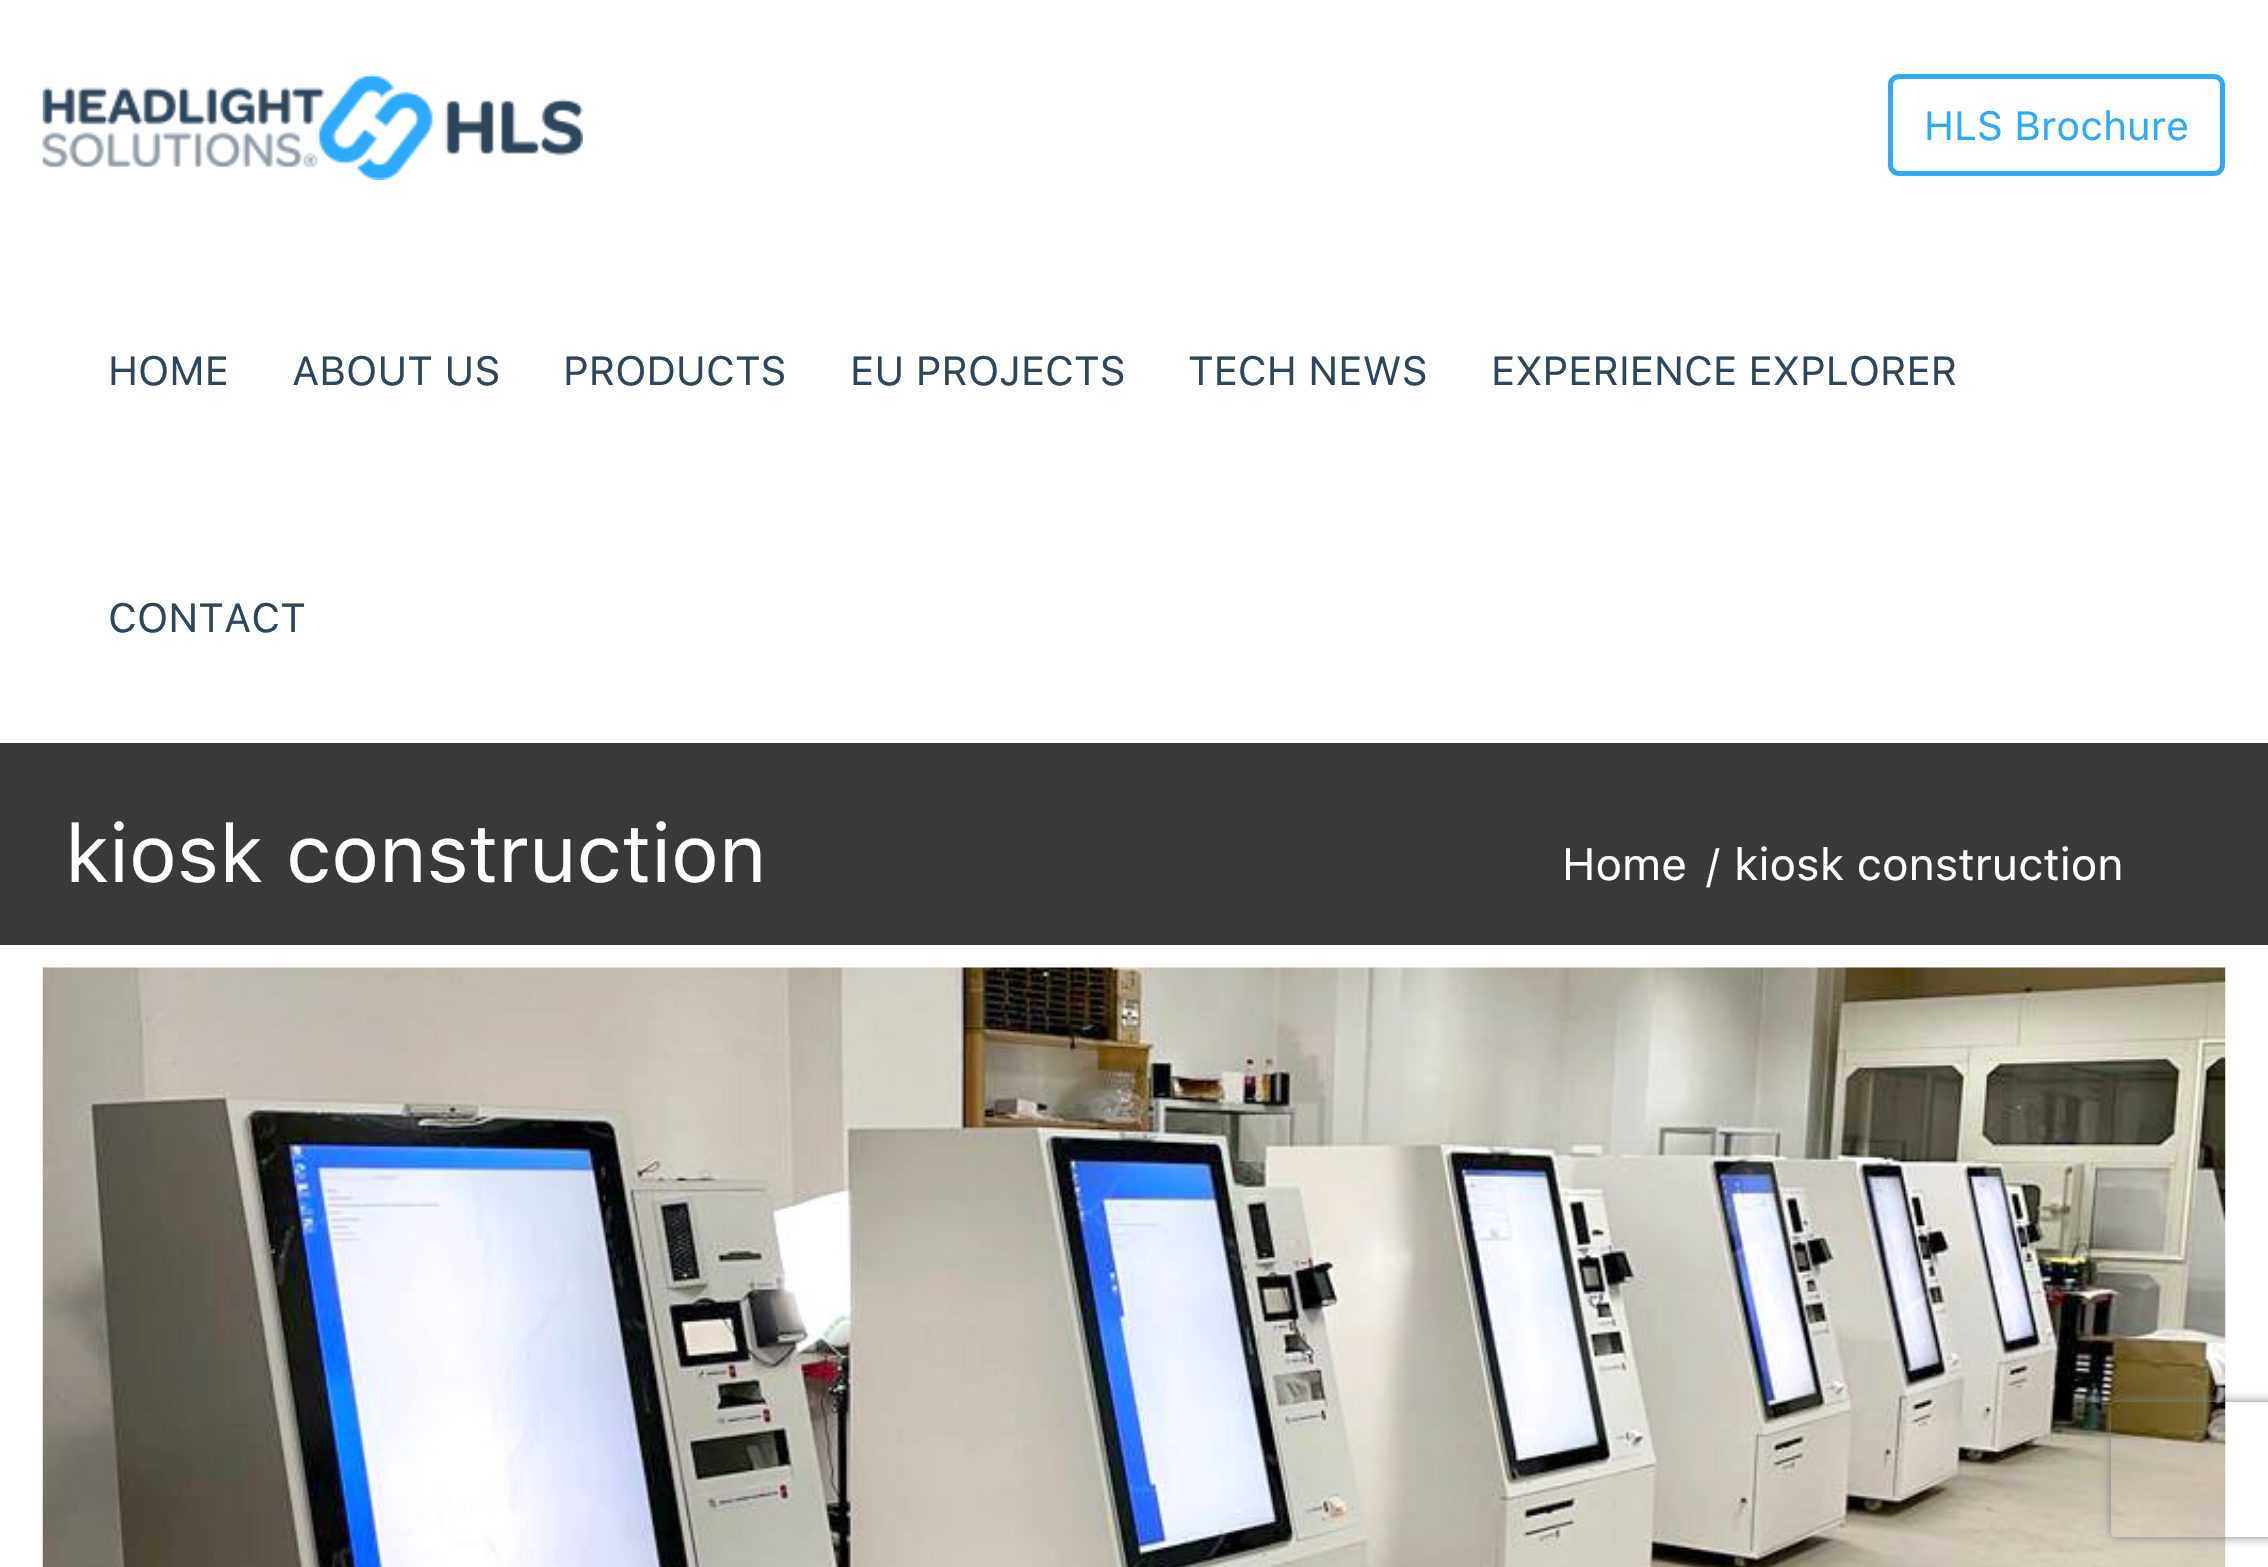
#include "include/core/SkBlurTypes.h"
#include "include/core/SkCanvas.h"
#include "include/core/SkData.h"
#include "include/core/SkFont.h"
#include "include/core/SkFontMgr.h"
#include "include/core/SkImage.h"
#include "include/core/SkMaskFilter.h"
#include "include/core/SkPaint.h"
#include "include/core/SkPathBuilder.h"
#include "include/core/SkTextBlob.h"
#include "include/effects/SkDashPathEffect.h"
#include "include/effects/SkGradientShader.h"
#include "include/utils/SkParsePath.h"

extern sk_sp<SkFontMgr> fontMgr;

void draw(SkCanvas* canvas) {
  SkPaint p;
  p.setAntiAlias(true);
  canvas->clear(SK_ColorWHITE);
  canvas->drawImageRect(SkImages::DeferredFromEncodedData(SkData::MakeFromFileName("images/1.png")), SkRect::MakeLTRB(42, 74, 583, 180), SkSamplingOptions());
  p.setStyle(SkPaint::kStroke_Style);
  p.setStrokeWidth(5);
  p.setColor(SkColorSetRGB(43, 170, 255));
  canvas->drawRoundRect(SkRect::MakeLTRB(1890.5f, 76.5f, 2222.5f, 173.5f), 8.5f, 8.5f, p);
  p.setStyle(SkPaint::kFill_Style);
  p.setColor(SkColorSetRGB(57, 57, 57));
  canvas->drawRect(SkRect::MakeLTRB(0, 743, 2268, 945), p);
  canvas->drawImageRect(SkImages::DeferredFromEncodedData(SkData::MakeFromFileName("images/2.png")), SkRect::MakeLTRB(42, 967, 2226, 1567), SkSamplingOptions());
  canvas->save();
  canvas->clipPath(SkPathBuilder(SkPathFillType::kEvenOdd).moveTo(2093, 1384).lineTo(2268, 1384).lineTo(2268, 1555).lineTo(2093, 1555).close().moveTo(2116, 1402).lineTo(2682, 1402).cubicTo(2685, 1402, 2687, 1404, 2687, 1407).lineTo(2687, 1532).cubicTo(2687, 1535, 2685, 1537, 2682, 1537).lineTo(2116, 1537).cubicTo(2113, 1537, 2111, 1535, 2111, 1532).lineTo(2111, 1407).cubicTo(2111, 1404, 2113, 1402, 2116, 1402).close().detach(), true);
  p.setColor(SkColorSetRGB(128, 128, 128));
  p.setMaskFilter(SkMaskFilter::MakeBlur(kNormal_SkBlurStyle, 5.5f));
  canvas->drawRoundRect(SkRect::MakeLTRB(2111, 1402, 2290, 1537), 5, 5, p);
  p.setMaskFilter(nullptr);
  canvas->restore();
  SkFont font1(fontMgr->matchFamilyStyle("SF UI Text", SkFontStyle::Normal()), 40.5f);
  font1.setSubpixel(true);
  p.setColor(SkColorSetRGB(43, 170, 255));
  canvas->drawString("HLS Brochure", 1924, 140, font1, p);
  p.setColor(SkColorSetRGB(46, 69, 90));
  canvas->drawString("HOME", 108, 385, font1, p);
  canvas->drawString("ABOUT US", 292, 385, font1, p);
  canvas->drawString("PRODUCTS", 563, 385, font1, p);
  canvas->drawString("EU PROJECTS", 850, 385, font1, p);
  canvas->drawString("TECH NEWS", 1188, 385, font1, p);
  canvas->drawString("EXPERIENCE EXPLORER", 1491, 385, font1, p);
  canvas->drawString("CONTACT", 108, 632, font1, p);
  SkFont font2(fontMgr->matchFamilyStyle("SF UI Text", SkFontStyle::Normal()), 81);
  font2.setSubpixel(true);
  p.setColor(SK_ColorWHITE);
  canvas->drawString("kiosk construction", 65, 882, font2, p);
  SkFont font3(fontMgr->matchFamilyStyle("SF UI Text", SkFontStyle::Normal()), 45);
  font3.setSubpixel(true);
  canvas->drawString("Home", 1562, 880, font3, p);
  canvas->drawString("/", 1705, 880, font3, p);
  canvas->drawString("kiosk construction", 1734, 880, font3, p);
}
